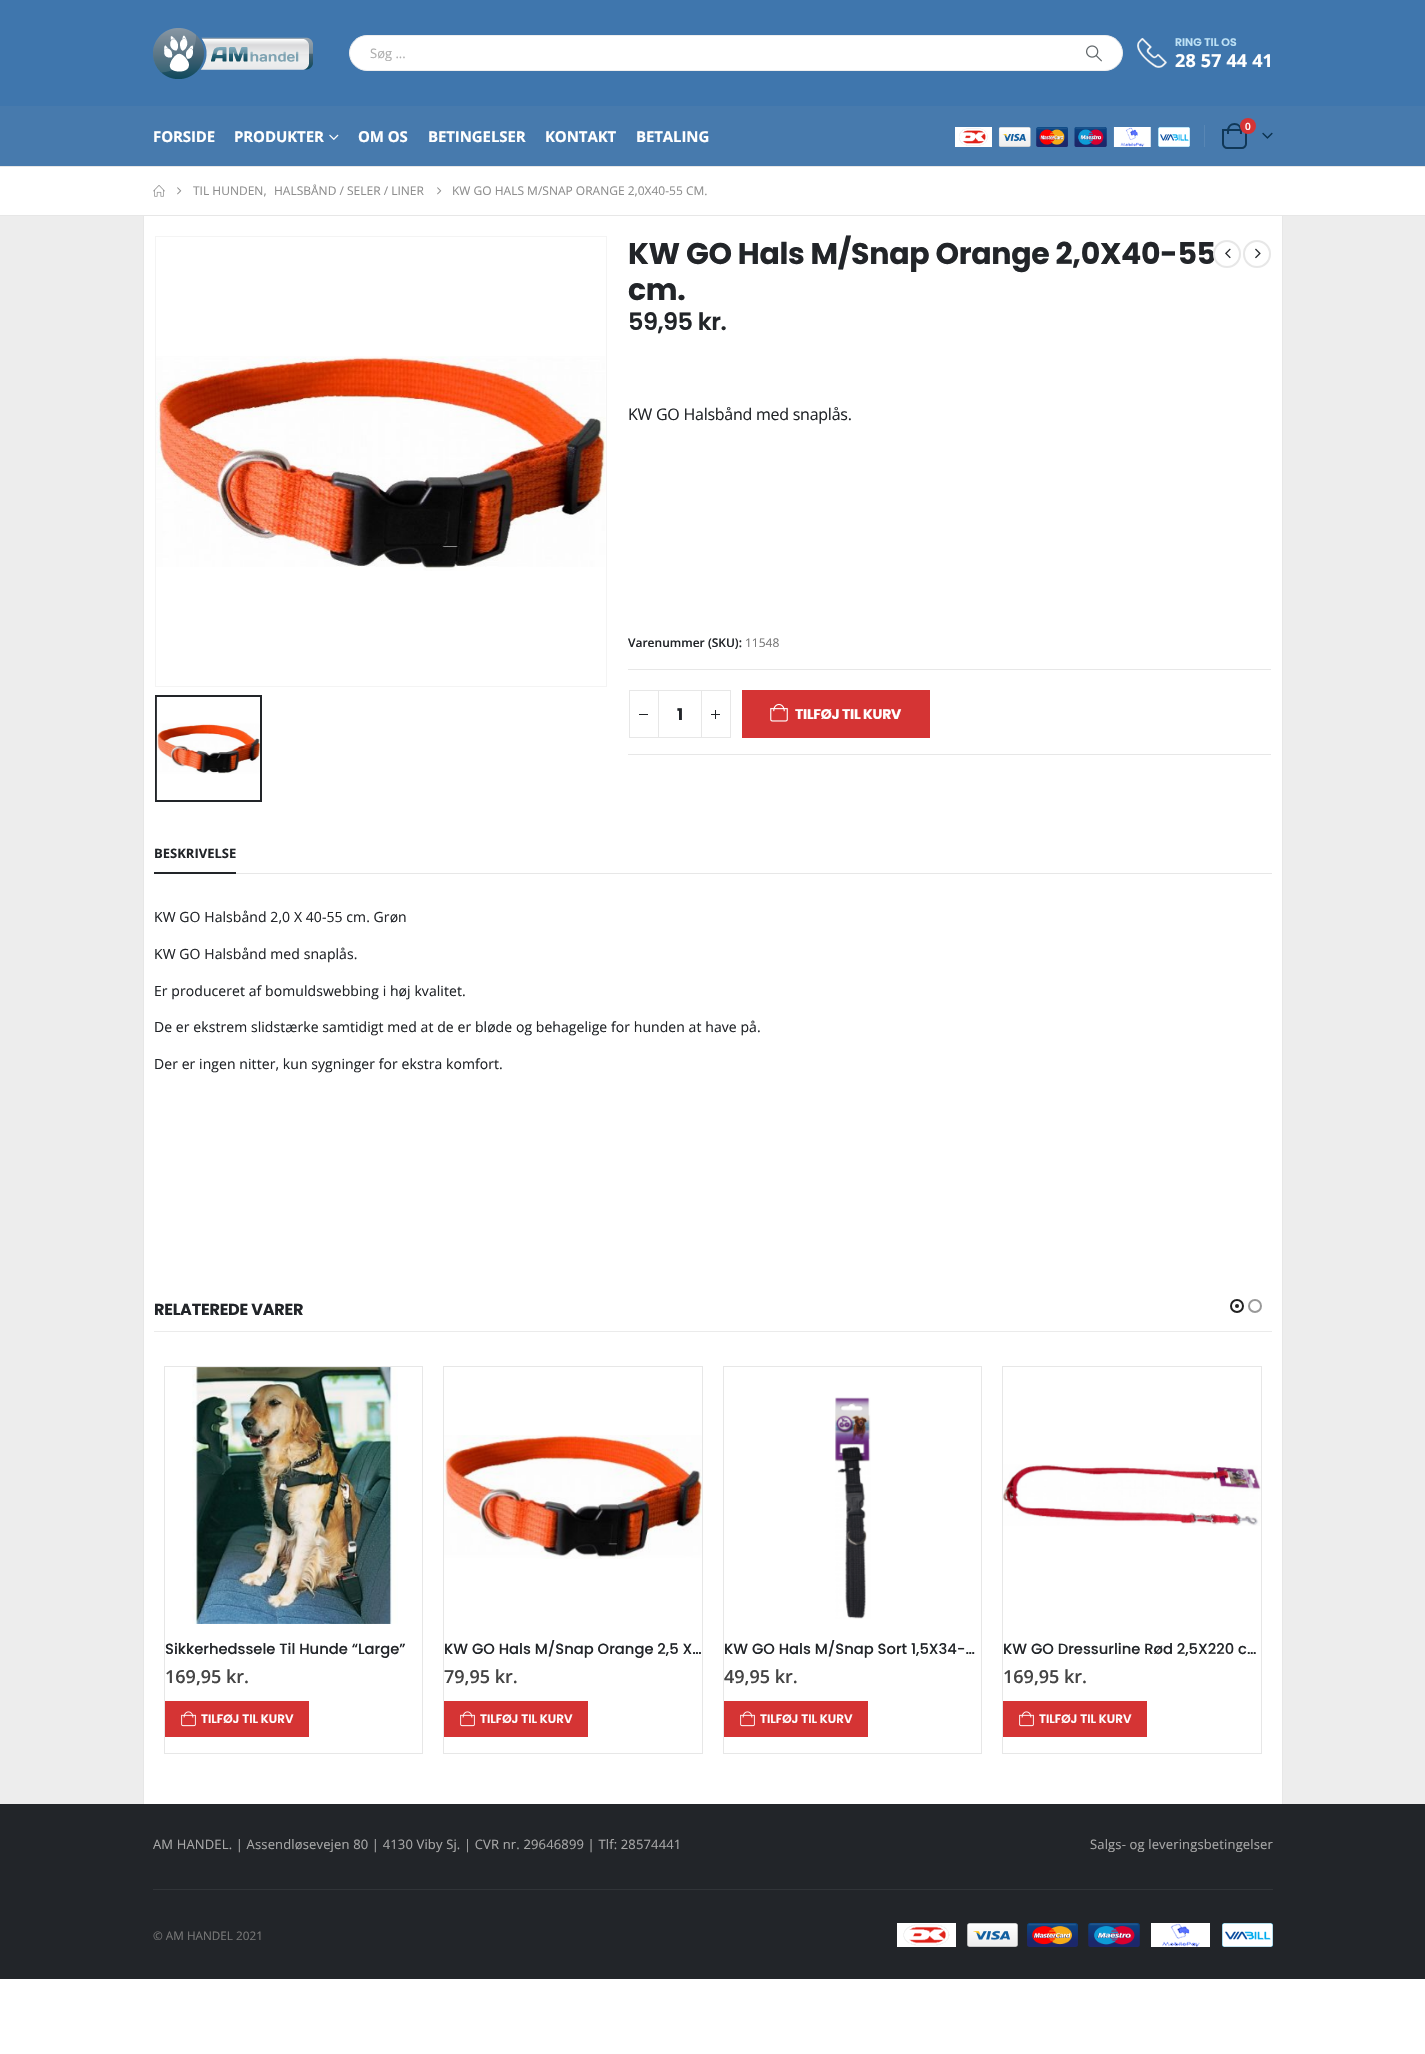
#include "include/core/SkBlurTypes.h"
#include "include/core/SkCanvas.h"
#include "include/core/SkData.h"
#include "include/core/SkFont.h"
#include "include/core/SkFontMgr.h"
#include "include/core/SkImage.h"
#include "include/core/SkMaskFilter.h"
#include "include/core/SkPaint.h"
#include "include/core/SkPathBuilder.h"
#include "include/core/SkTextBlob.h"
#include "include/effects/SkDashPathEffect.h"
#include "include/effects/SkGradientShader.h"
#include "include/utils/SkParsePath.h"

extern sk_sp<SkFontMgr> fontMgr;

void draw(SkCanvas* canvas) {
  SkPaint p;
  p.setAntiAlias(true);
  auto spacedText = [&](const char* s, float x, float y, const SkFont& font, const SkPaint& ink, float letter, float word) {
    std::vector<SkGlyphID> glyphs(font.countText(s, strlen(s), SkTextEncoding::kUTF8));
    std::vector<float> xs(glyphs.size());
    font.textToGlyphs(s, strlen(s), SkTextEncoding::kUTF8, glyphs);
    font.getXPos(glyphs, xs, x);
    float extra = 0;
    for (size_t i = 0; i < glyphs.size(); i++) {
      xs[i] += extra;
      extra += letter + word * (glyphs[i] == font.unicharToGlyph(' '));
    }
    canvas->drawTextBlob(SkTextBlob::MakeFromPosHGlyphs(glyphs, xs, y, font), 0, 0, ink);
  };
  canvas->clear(SK_ColorWHITE);
  p.setColor(SkColorSetRGB(231, 231, 231));
  canvas->drawRect(SkRect::MakeLTRB(0, 166, 1425, 167), p);
  p.setColor(SkColorSetRGB(63, 118, 173));
  canvas->drawRect(SkRect::MakeLTRB(0, 0, 1425, 106), p);
  canvas->drawImageRect(SkImages::DeferredFromEncodedData(SkData::MakeFromFileName("images/1.png")), SkRect::MakeLTRB(153, 28, 313, 79), SkSamplingOptions());
  p.setColor(SK_ColorWHITE);
  canvas->drawRoundRect(SkRect::MakeLTRB(349.5f, 35.5f, 1122.5f, 70.5f), 17.5f, 17.5f, p);
  p.setStyle(SkPaint::kStroke_Style);
  p.setStrokeWidth(1);
  p.setColor(SkColorSetRGB(238, 238, 238));
  canvas->drawRoundRect(SkRect::MakeLTRB(349.5f, 35.5f, 1122.5f, 70.5f), 17.5f, 17.5f, p);
  canvas->drawImageRect(SkImages::DeferredFromEncodedData(SkData::MakeFromFileName("images/2.png")), SkRect::MakeLTRB(1086, 45, 1102, 62), SkSamplingOptions());
  canvas->drawImageRect(SkImages::DeferredFromEncodedData(SkData::MakeFromFileName("images/3.png")), SkRect::MakeLTRB(1137, 38, 1167, 68), SkSamplingOptions());
  p.setStyle(SkPaint::kFill_Style);
  p.setColor(SkColorSetRGB(71, 122, 173));
  canvas->drawRect(SkRect::MakeLTRB(0, 106, 1425, 166), p);
  canvas->drawImageRect(SkImages::DeferredFromEncodedData(SkData::MakeFromFileName("images/4.png")), SkRect::MakeLTRB(955, 127, 1190, 147), SkSamplingOptions());
  p.setColor(SkColorSetRGB(88, 134, 180));
  canvas->drawRect(SkRect::MakeLTRB(1204, 125, 1205, 147), p);
  p.setStyle(SkPaint::kStroke_Style);
  p.setStrokeWidth(2);
  p.setColor(SkColorSetRGB(15, 55, 87));
  canvas->drawPath(SkPathBuilder().moveTo(1223, 130).lineTo(1246, 130).lineTo(1246, 144).cubicTo(1246, 146, 1244, 148, 1242, 148).lineTo(1227, 148).cubicTo(1225, 148, 1223, 146, 1223, 144).close().detach(), p);
  p.setStyle(SkPaint::kFill_Style);
  canvas->drawPath(SkPathBuilder(SkPathFillType::kEvenOdd).moveTo(1234.5f, 123).cubicTo(1238.5f, 123, 1242, 126.5f, 1242, 130.5f).lineTo(1242, 134).lineTo(1227, 134).lineTo(1227, 130.5f).cubicTo(1227, 126.5f, 1230.5f, 123, 1234.5f, 123).close().moveTo(1234.5f, 125).cubicTo(1240, 125, 1240, 130, 1240, 134).lineTo(1229, 134).cubicTo(1229, 130, 1229, 125, 1234.5f, 125).close().detach(), p);
  p.setColor(SkColorSetRGB(213, 52, 52));
  canvas->drawCircle(1248, 126, 8, p);
  canvas->drawImageRect(SkImages::DeferredFromEncodedData(SkData::MakeFromFileName("images/5.png")), SkRect::MakeLTRB(1262, 132, 1273, 139), SkSamplingOptions());
  canvas->drawImageRect(SkImages::DeferredFromEncodedData(SkData::MakeFromFileName("images/6.png")), SkRect::MakeLTRB(329, 134, 339, 140), SkSamplingOptions());
  p.setColor(SkColorSetRGB(231, 231, 231));
  canvas->drawRect(SkRect::MakeLTRB(0, 215, 1425, 216), p);
  canvas->drawImageRect(SkImages::DeferredFromEncodedData(SkData::MakeFromFileName("images/7.png")), SkRect::MakeLTRB(153, 185, 165, 197), SkSamplingOptions());
  canvas->drawImageRect(SkImages::DeferredFromEncodedData(SkData::MakeFromFileName("images/8.png")), SkRect::MakeLTRB(177, 187, 182, 195), SkSamplingOptions());
  canvas->drawImageRect(SkImages::DeferredFromEncodedData(SkData::MakeFromFileName("images/8.png")), SkRect::MakeLTRB(437, 187, 442, 195), SkSamplingOptions());
  p.setColor(SkColorSetRGB(237, 237, 237));
  canvas->drawRect(SkRect::MakeLTRB(0, 216, 1425, 1804), p);
  p.setColor(SK_ColorWHITE);
  canvas->drawRect(SkRect::MakeLTRB(144, 216, 1282, 1804), p);
  p.setColor(SkColorSetRGB(231, 231, 231));
  canvas->drawRect(SkRect::MakeLTRB(1282, 216, 1283, 1804), p);
  canvas->drawRect(SkRect::MakeLTRB(143, 216, 144, 1804), p);
  p.setStyle(SkPaint::kStroke_Style);
  p.setStrokeWidth(1);
  p.setColor(SkColorSetRGB(244, 244, 244));
  canvas->drawRect(SkRect::MakeLTRB(155.5f, 236.5f, 606.5f, 686.5f), p);
  canvas->drawImageRect(SkImages::DeferredFromEncodedData(SkData::MakeFromFileName("images/9.png")), SkRect::MakeLTRB(156, 356, 606, 571), SkSamplingOptions());
  p.setStrokeWidth(2);
  p.setColor(SkColorSetRGB(34, 37, 41));
  canvas->drawRect(SkRect::MakeLTRB(156, 696, 261, 801), p);
  canvas->drawImageRect(SkImages::DeferredFromEncodedData(SkData::MakeFromFileName("images/10.png")), SkRect::MakeLTRB(156, 697, 260, 800), SkSamplingOptions());
  p.setColor(SkColorSetRGB(231, 231, 231));
  canvas->drawCircle(1257, 254, 13, p);
  canvas->drawImageRect(SkImages::DeferredFromEncodedData(SkData::MakeFromFileName("images/12.png")), SkRect::MakeLTRB(1255, 248, 1261, 259), SkSamplingOptions());
  p.setStyle(SkPaint::kFill_Style);
  canvas->drawRect(SkRect::MakeLTRB(628, 669, 1271, 670), p);
  canvas->drawRect(SkRect::MakeLTRB(628, 754, 1271, 755), p);
  canvas->drawRect(SkRect::MakeLTRB(658, 690, 702, 691), p);
  canvas->drawRect(SkRect::MakeLTRB(658, 737, 702, 738), p);
  p.setStyle(SkPaint::kStroke_Style);
  p.setStrokeWidth(1);
  canvas->drawRect(SkRect::MakeLTRB(629.5f, 690.5f, 658.5f, 737.5f), p);
  p.setStyle(SkPaint::kFill_Style);
  p.setColor(SkColorSetRGB(34, 37, 41));
  canvas->drawRect(SkRect::MakeLTRB(639, 714, 648, 715), p);
  p.setStyle(SkPaint::kStroke_Style);
  p.setColor(SkColorSetRGB(231, 231, 231));
  canvas->drawRect(SkRect::MakeLTRB(701.5f, 690.5f, 730.5f, 737.5f), p);
  p.setStyle(SkPaint::kFill_Style);
  p.setColor(SkColorSetRGB(34, 37, 41));
  canvas->drawRect(SkRect::MakeLTRB(711, 714, 720, 715), p);
  canvas->drawRect(SkRect::MakeLTRB(715, 710, 716, 719), p);
  p.setColor(SkColorSetRGB(213, 52, 52));
  canvas->drawRect(SkRect::MakeLTRB(742, 690, 930, 738), p);
  canvas->drawImageRect(SkImages::DeferredFromEncodedData(SkData::MakeFromFileName("images/13.png")), SkRect::MakeLTRB(770, 703, 788, 722), SkSamplingOptions());
  p.setColor(SkColorSetRGB(34, 37, 41));
  canvas->drawRect(SkRect::MakeLTRB(154, 872, 236, 874), p);
  p.setColor(SkColorSetRGB(231, 231, 231));
  canvas->drawRect(SkRect::MakeLTRB(236, 873, 1272, 874), p);
  p.setColor(SkColorSetRGB(235, 235, 235));
  canvas->drawRect(SkRect::MakeLTRB(154, 1331, 1272, 1332), p);
  p.setStyle(SkPaint::kStroke_Style);
  p.setStrokeWidth(2);
  p.setColor(SkColorSetRGB(34, 34, 34));
  canvas->drawCircle(1237, 1306, 6, p);
  p.setStyle(SkPaint::kFill_Style);
  canvas->drawCircle(1237, 1306, 2, p);
  p.setStyle(SkPaint::kStroke_Style);
  p.setColor(SkColorSetRGB(153, 153, 153));
  canvas->drawCircle(1255, 1306, 6, p);
  p.setStrokeWidth(1);
  p.setColor(SkColorSetRGB(231, 231, 231));
  canvas->drawRect(SkRect::MakeLTRB(164.5f, 1366.5f, 422.5f, 1753.5f), p);
  canvas->drawImageRect(SkImages::DeferredFromEncodedData(SkData::MakeFromFileName("images/14.png")), SkRect::MakeLTRB(192, 1367, 398, 1624), SkSamplingOptions());
  p.setStyle(SkPaint::kFill_Style);
  p.setColor(SkColorSetRGB(213, 52, 52));
  canvas->drawRect(SkRect::MakeLTRB(165, 1701, 309, 1737), p);
  canvas->drawImageRect(SkImages::DeferredFromEncodedData(SkData::MakeFromFileName("images/15.png")), SkRect::MakeLTRB(181, 1711, 196, 1727), SkSamplingOptions());
  p.setStyle(SkPaint::kStroke_Style);
  p.setColor(SkColorSetRGB(231, 231, 231));
  canvas->drawRect(SkRect::MakeLTRB(443.5f, 1366.5f, 702.5f, 1753.5f), p);
  canvas->drawImageRect(SkImages::DeferredFromEncodedData(SkData::MakeFromFileName("images/16.png")), SkRect::MakeLTRB(444, 1435, 702, 1559), SkSamplingOptions());
  p.setStyle(SkPaint::kFill_Style);
  p.setColor(SkColorSetRGB(213, 52, 52));
  canvas->drawRect(SkRect::MakeLTRB(444, 1701, 588, 1737), p);
  canvas->drawImageRect(SkImages::DeferredFromEncodedData(SkData::MakeFromFileName("images/15.png")), SkRect::MakeLTRB(460, 1711, 475, 1727), SkSamplingOptions());
  p.setStyle(SkPaint::kStroke_Style);
  p.setColor(SkColorSetRGB(231, 231, 231));
  canvas->drawRect(SkRect::MakeLTRB(723.5f, 1366.5f, 981.5f, 1753.5f), p);
  canvas->drawImageRect(SkImages::DeferredFromEncodedData(SkData::MakeFromFileName("images/17.png")), SkRect::MakeLTRB(835, 1397, 871, 1619), SkSamplingOptions());
  p.setStyle(SkPaint::kFill_Style);
  p.setColor(SkColorSetRGB(213, 52, 52));
  canvas->drawRect(SkRect::MakeLTRB(724, 1701, 868, 1737), p);
  canvas->drawImageRect(SkImages::DeferredFromEncodedData(SkData::MakeFromFileName("images/15.png")), SkRect::MakeLTRB(740, 1711, 755, 1727), SkSamplingOptions());
  p.setStyle(SkPaint::kStroke_Style);
  p.setColor(SkColorSetRGB(231, 231, 231));
  canvas->drawRect(SkRect::MakeLTRB(1002.5f, 1366.5f, 1261.5f, 1753.5f), p);
  canvas->drawImageRect(SkImages::DeferredFromEncodedData(SkData::MakeFromFileName("images/18.png")), SkRect::MakeLTRB(1003, 1464, 1261, 1526), SkSamplingOptions());
  p.setStyle(SkPaint::kFill_Style);
  p.setColor(SkColorSetRGB(213, 52, 52));
  canvas->drawRect(SkRect::MakeLTRB(1003, 1701, 1147, 1737), p);
  canvas->drawImageRect(SkImages::DeferredFromEncodedData(SkData::MakeFromFileName("images/15.png")), SkRect::MakeLTRB(1019, 1711, 1034, 1727), SkSamplingOptions());
  p.setColor(SkColorSetRGB(34, 37, 41));
  canvas->drawRect(SkRect::MakeLTRB(0, 1804, 1425, 1979), p);
  p.setColor(SkColorSetRGB(49, 52, 56));
  canvas->drawRect(SkRect::MakeLTRB(153, 1889, 1273, 1890), p);
  canvas->drawImageRect(SkImages::DeferredFromEncodedData(SkData::MakeFromFileName("images/19.png")), SkRect::MakeLTRB(897, 1923, 1273, 1947), SkSamplingOptions());
  SkFont font1(fontMgr->matchFamilyStyle("Open Sans", SkFontStyle::Normal()), 13);
  font1.setSubpixel(true);
  p.setColor(SkColorSetRGB(175, 175, 175));
  canvas->drawString("Søg ...", 370, 58, font1, p);
  SkFont font2(fontMgr->matchFamilyStyle("Poppins", SkFontStyle(600, SkFontStyle::kNormal_Width, SkFontStyle::kUpright_Slant)), 11);
  font2.setSubpixel(true);
  p.setColor(SkColorSetRGB(189, 225, 245));
  canvas->drawString("RING TIL OS", 1175, 46, font2, p);
  SkFont font3(fontMgr->matchFamilyStyle("Open Sans", SkFontStyle::Bold()), 18);
  font3.setSubpixel(true);
  p.setColor(SK_ColorWHITE);
  spacedText("28 57 44 41", 1175, 67, font3, p, 0.15f, 0);
  SkFont font4(fontMgr->matchFamilyStyle("Open Sans", SkFontStyle(600, SkFontStyle::kNormal_Width, SkFontStyle::kUpright_Slant)), 10);
  font4.setSubpixel(true);
  canvas->drawString("0", 1245, 130, font4, p);
  SkFont font5(fontMgr->matchFamilyStyle("Open Sans", SkFontStyle::Bold()), 15);
  font5.setSubpixel(true);
  spacedText("FORSIDE", 153, 142, font5, p, -0.1f, 0);
  spacedText("PRODUKTER", 234, 142, font5, p, -0.1f, 0);
  spacedText("OM OS", 358, 142, font5, p, -0.1f, 0);
  spacedText("BETINGELSER", 428, 142, font5, p, -0.1f, 0);
  spacedText("KONTAKT", 545, 142, font5, p, -0.1f, 0);
  spacedText("BETALING", 636, 142, font5, p, -0.1f, 0);
  SkFont font6(fontMgr->matchFamilyStyle("Open Sans", SkFontStyle::Normal()), 12);
  font6.setSubpixel(true);
  p.setColor(SkColorSetRGB(142, 142, 142));
  canvas->drawString("TIL HUNDEN,", 193, 195, font6, p);
  canvas->drawString("HALSBÅND / SELER / LINER", 274, 195, font6, p);
  canvas->drawString("KW GO HALS M/SNAP ORANGE 2,0X40-55 CM.", 452, 195, font6, p);
  SkFont font7(fontMgr->matchFamilyStyle("Poppins", SkFontStyle::Bold()), 30);
  font7.setSubpixel(true);
  p.setColor(SkColorSetRGB(34, 37, 41));
  spacedText("KW GO Hals M/Snap Orange 2,0X40-55", 628, 264, font7, p, -0.3f, 0);
  spacedText("cm.", 628, 300, font7, p, -0.3f, 0);
  p.setStyle(SkPaint::kStroke_Style);
  p.setStrokeWidth(2);
  p.setColor(SkColorSetRGB(231, 231, 231));
  canvas->drawCircle(1227, 254, 13, p);
  canvas->drawImageRect(SkImages::DeferredFromEncodedData(SkData::MakeFromFileName("images/11.png")), SkRect::MakeLTRB(1225, 248, 1231, 259), SkSamplingOptions());
  SkFont font8(fontMgr->matchFamilyStyle("Poppins", SkFontStyle(600, SkFontStyle::kNormal_Width, SkFontStyle::kUpright_Slant)), 24);
  font8.setSubpixel(true);
  p.setStyle(SkPaint::kFill_Style);
  p.setColor(SkColorSetRGB(34, 37, 41));
  spacedText("59,95 kr.", 628, 330, font8, p, -0.5f, 0);
  SkFont font9(fontMgr->matchFamilyStyle("Open Sans", SkFontStyle::Normal()), 16);
  font9.setSubpixel(true);
  spacedText("KW GO Halsbånd med snaplås.", 628, 420, font9, p, -0.25f, 0);
  SkFont font10(fontMgr->matchFamilyStyle("Open Sans", SkFontStyle(600, SkFontStyle::kNormal_Width, SkFontStyle::kUpright_Slant)), 12);
  font10.setSubpixel(true);
  canvas->drawString("Varenummer (SKU):", 628, 647, font10, p);
  p.setColor(SkColorSetRGB(119, 119, 119));
  canvas->drawString("11548", 745, 647, font6, p);
  SkFont font11(fontMgr->matchFamilyStyle("Poppins", SkFontStyle::Bold()), 16);
  font11.setSubpixel(true);
  p.setColor(SkColorSetRGB(34, 37, 41));
  canvas->drawString("1", 677, 720, font11, p);
  SkFont font12(fontMgr->matchFamilyStyle("Poppins", SkFontStyle::Bold()), 14);
  font12.setSubpixel(true);
  p.setColor(SK_ColorWHITE);
  spacedText("TILFØJ TIL KURV", 795, 719, font12, p, -0.25f, 0);
  SkFont font13(fontMgr->matchFamilyStyle("Open Sans", SkFontStyle::Bold()), 13);
  font13.setSubpixel(true);
  p.setColor(SkColorSetRGB(34, 37, 41));
  canvas->drawString("BESKRIVELSE", 154, 858, font13, p);
  SkFont font14(fontMgr->matchFamilyStyle("Open Sans", SkFontStyle::Normal()), 14);
  font14.setSubpixel(true);
  spacedText("KW GO Halsbånd 2,0 X 40-55 cm. Grøn", 154, 922, font14, p, 0.07f, 0);
  spacedText("KW GO Halsbånd med snaplås.", 154, 959, font14, p, 0.07f, 0);
  spacedText("Er produceret af bomuldswebbing i høj kvalitet.", 154, 996, font14, p, 0.07f, 0);
  spacedText("De er ekstrem slidstærke samtidigt med at de er bløde og behagelige for hunden at have på.", 154, 1032, font14, p, 0.07f, 0);
  spacedText("Der er ingen nitter, kun sygninger for ekstra komfort.", 154, 1069, font14, p, 0.07f, 0);
  spacedText("RELATEREDE VARER", 154, 1315, font11, p, -0.2f, 0);
  SkFont font15(fontMgr->matchFamilyStyle("Poppins", SkFontStyle(500, SkFontStyle::kNormal_Width, SkFontStyle::kUpright_Slant)), 14.75f);
  font15.setSubpixel(true);
  canvas->drawString("Sikkerhedssele Til Hunde “Large”", 165, 1654, font15, p);
  SkFont font16(fontMgr->matchFamilyStyle("Open Sans", SkFontStyle(600, SkFontStyle::kNormal_Width, SkFontStyle::kUpright_Slant)), 18);
  font16.setSubpixel(true);
  p.setColor(SkColorSetRGB(68, 68, 68));
  canvas->drawString("169,95 kr.", 165, 1683, font16, p);
  SkFont font17(fontMgr->matchFamilyStyle("Poppins", SkFontStyle(600, SkFontStyle::kNormal_Width, SkFontStyle::kUpright_Slant)), 12);
  font17.setSubpixel(true);
  p.setColor(SK_ColorWHITE);
  canvas->drawString("TILFØJ TIL KURV", 201, 1723, font17, p);
  p.setColor(SkColorSetRGB(34, 37, 41));
  canvas->drawString("KW GO Hals M/Snap Orange 2,5 X…", 444, 1654, font15, p);
  p.setColor(SkColorSetRGB(68, 68, 68));
  canvas->drawString("79,95 kr.", 444, 1683, font16, p);
  p.setColor(SK_ColorWHITE);
  canvas->drawString("TILFØJ TIL KURV", 480, 1723, font17, p);
  p.setColor(SkColorSetRGB(34, 37, 41));
  canvas->drawString("KW GO Hals M/Snap Sort 1,5X34-…", 724, 1654, font15, p);
  p.setColor(SkColorSetRGB(68, 68, 68));
  canvas->drawString("49,95 kr.", 724, 1683, font16, p);
  p.setColor(SK_ColorWHITE);
  canvas->drawString("TILFØJ TIL KURV", 760, 1723, font17, p);
  p.setColor(SkColorSetRGB(34, 37, 41));
  canvas->drawString("KW GO Dressurline Rød 2,5X220 c…", 1003, 1654, font15, p);
  p.setColor(SkColorSetRGB(68, 68, 68));
  canvas->drawString("169,95 kr.", 1003, 1683, font16, p);
  p.setColor(SK_ColorWHITE);
  canvas->drawString("TILFØJ TIL KURV", 1039, 1723, font17, p);
  p.setColor(SkColorSetRGB(168, 168, 168));
  spacedText("AM HANDEL. | Assendløsevejen 80 | 4130 Viby Sj. | CVR nr. 29646899 | Tlf: 28574441", 153, 1849, font1, p, 0.15f, 0);
  spacedText("Salgs- og leveringsbetingelser", 1090, 1849, font1, p, 0.15f, 0);
  SkFont font18(fontMgr->matchFamilyStyle("Open Sans", SkFontStyle::Normal()), 11.75f);
  font18.setSubpixel(true);
  p.setColor(SkColorSetRGB(119, 119, 119));
  canvas->drawString("© AM HANDEL 2021", 153, 1940, font18, p);
}
